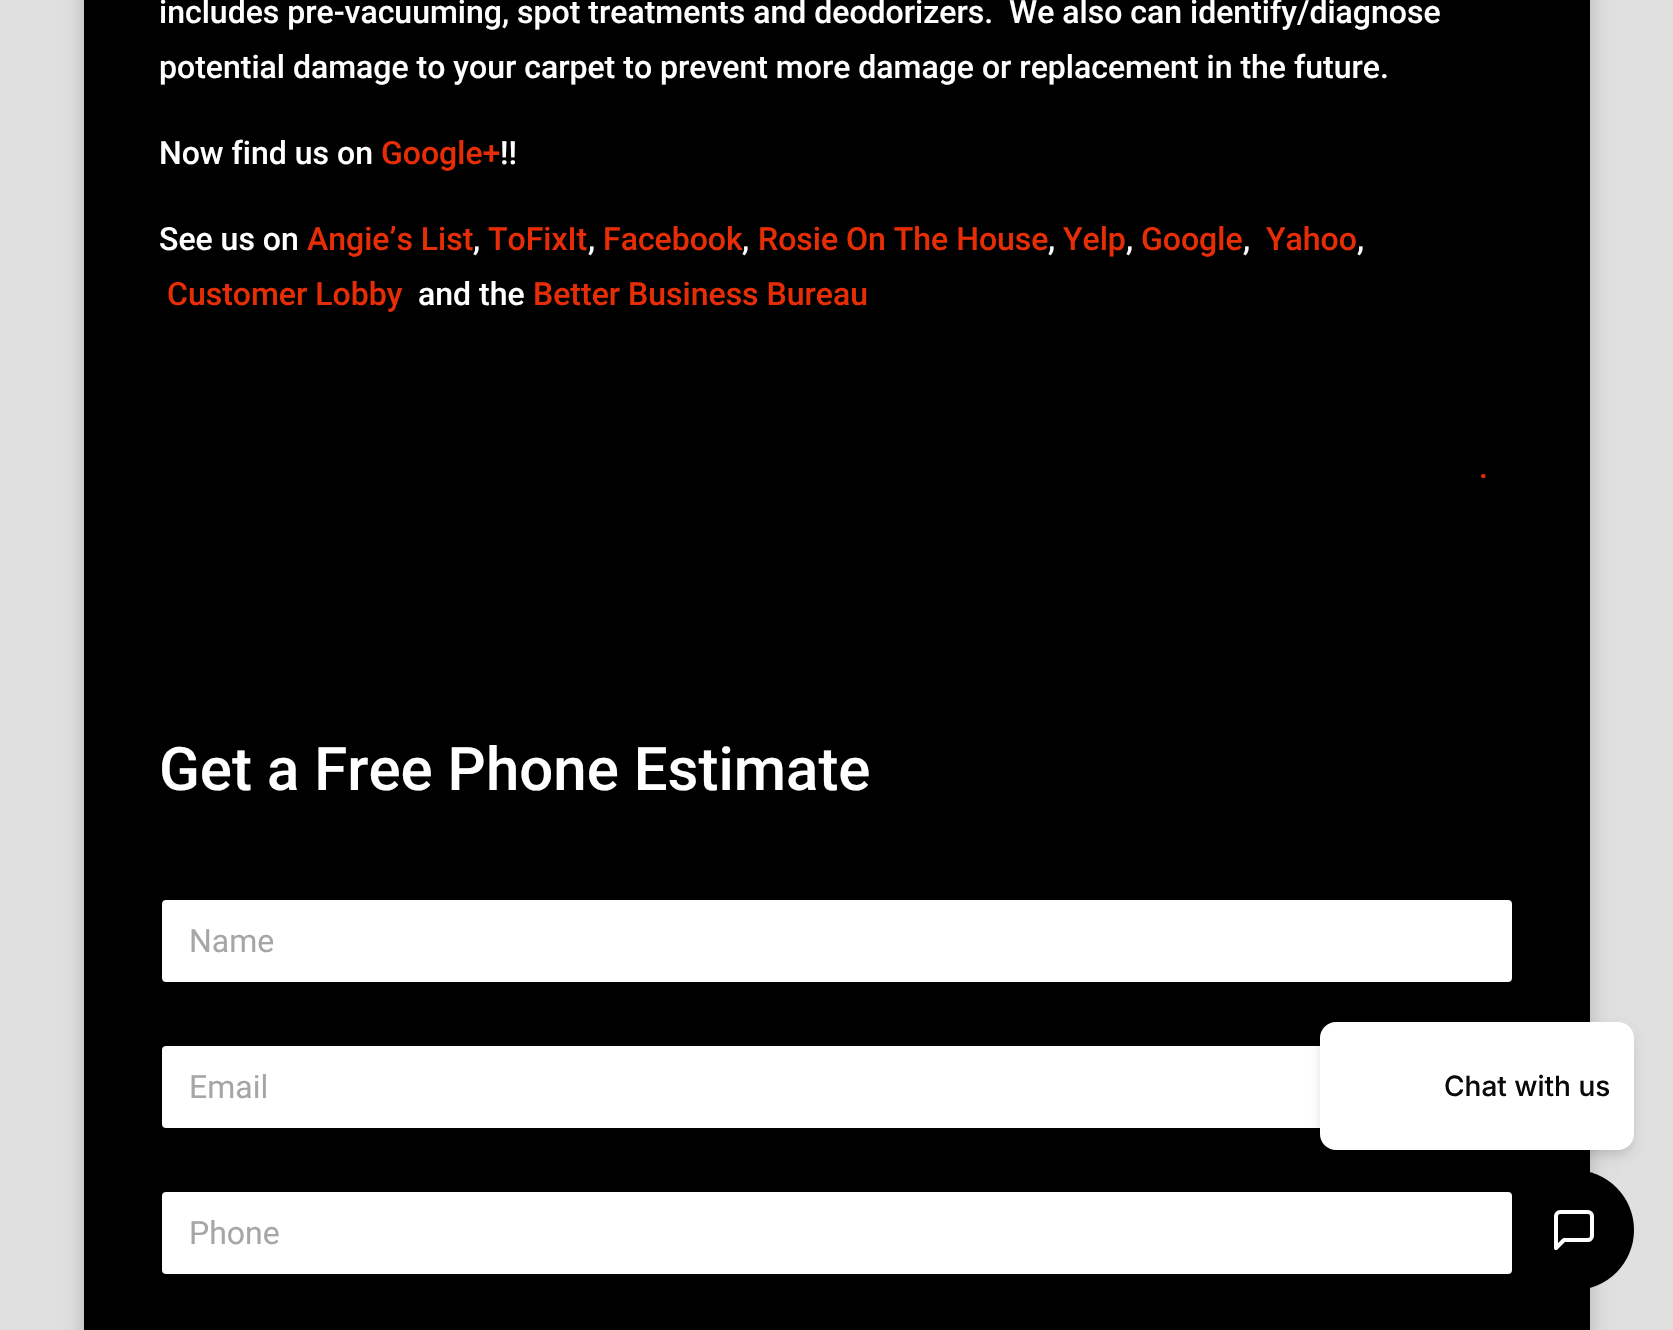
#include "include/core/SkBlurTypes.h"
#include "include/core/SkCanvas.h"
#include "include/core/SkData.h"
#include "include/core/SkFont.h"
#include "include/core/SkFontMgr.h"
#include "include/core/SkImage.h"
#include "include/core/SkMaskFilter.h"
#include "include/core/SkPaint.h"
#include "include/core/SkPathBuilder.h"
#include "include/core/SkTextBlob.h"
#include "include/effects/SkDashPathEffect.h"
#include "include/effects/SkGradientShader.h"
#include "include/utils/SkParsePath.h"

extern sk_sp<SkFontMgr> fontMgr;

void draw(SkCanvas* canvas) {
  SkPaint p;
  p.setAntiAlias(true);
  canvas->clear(SkColorSetRGB(224, 224, 224));
  p.setColor(SkColorSetARGB(51, 0, 0, 0));
  p.setMaskFilter(SkMaskFilter::MakeBlur(kNormal_SkBlurStyle, 10));
  canvas->drawRect(SkRect::MakeLTRB(84, -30, 1590, 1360), p);
  p.setMaskFilter(nullptr);
  p.setColor(SK_ColorBLACK);
  canvas->drawRect(SkRect::MakeLTRB(84, 0, 1590, 1330), p);
  p.setColor(SK_ColorWHITE);
  canvas->drawRoundRect(SkRect::MakeLTRB(162, 900, 1512, 982), 4, 4, p);
  p.setStyle(SkPaint::kStroke_Style);
  p.setStrokeWidth(2);
  p.setColor(SkColorSetARGB(64, 0, 0, 0));
  canvas->drawRoundRect(SkRect::MakeLTRB(161, 899, 1513, 983), 5, 5, p);
  p.setStyle(SkPaint::kFill_Style);
  p.setColor(SK_ColorWHITE);
  canvas->drawRoundRect(SkRect::MakeLTRB(162, 1046, 1512, 1128), 4, 4, p);
  p.setStyle(SkPaint::kStroke_Style);
  p.setColor(SkColorSetARGB(64, 0, 0, 0));
  canvas->drawRoundRect(SkRect::MakeLTRB(161, 1045, 1513, 1129), 5, 5, p);
  p.setStyle(SkPaint::kFill_Style);
  p.setColor(SK_ColorWHITE);
  canvas->drawRoundRect(SkRect::MakeLTRB(162, 1192, 1512, 1274), 4, 4, p);
  p.setStyle(SkPaint::kStroke_Style);
  p.setColor(SkColorSetARGB(64, 0, 0, 0));
  canvas->drawRoundRect(SkRect::MakeLTRB(161, 1191, 1513, 1275), 5, 5, p);
  p.setStyle(SkPaint::kFill_Style);
  p.setColor(SkColorSetARGB(15, 0, 0, 0));
  p.setMaskFilter(SkMaskFilter::MakeBlur(kNormal_SkBlurStyle, 4));
  canvas->drawRoundRect(SkRect::MakeLTRB(1322, 1028, 1632, 1152), 14, 14, p);
  p.setMaskFilter(nullptr);
  p.setColor(SK_ColorBLACK);
  canvas->drawCircle(1574, 1230, 60, p);
  p.setColor(SkColorSetARGB(26, 0, 0, 0));
  p.setMaskFilter(SkMaskFilter::MakeBlur(kNormal_SkBlurStyle, 6));
  canvas->drawRoundRect(SkRect::MakeLTRB(1322, 1032, 1632, 1156), 14, 14, p);
  p.setMaskFilter(nullptr);
  p.setColor(SK_ColorWHITE);
  canvas->drawRoundRect(SkRect::MakeLTRB(1320, 1022, 1634, 1150), 16, 16, p);
  p.setStyle(SkPaint::kStroke_Style);
  p.setStrokeWidth(4);
  p.setStrokeCap(SkPaint::kRound_Cap);
  p.setStrokeJoin(SkPaint::kRound_Join);
  canvas->drawPath(SkPathBuilder().moveTo(1592, 1236).cubicTo(1592, 1238, 1590, 1240, 1588, 1240).lineTo(1564, 1240).lineTo(1556, 1248).lineTo(1556, 1216).cubicTo(1556, 1214, 1558, 1212, 1560, 1212).lineTo(1588, 1212).cubicTo(1590, 1212, 1592, 1214, 1592, 1216).close().detach(), p);
  SkFont font1(fontMgr->matchFamilyStyle("Roboto", SkFontStyle(500, SkFontStyle::kNormal_Width, SkFontStyle::kUpright_Slant)), 32);
  font1.setSubpixel(true);
  p.setStyle(SkPaint::kFill_Style);
  canvas->drawString("includes pre-vacuuming, spot treatments and deodorizers.  We also can identify/diagnose", 159, 23, font1, p);
  canvas->drawString("potential damage to your carpet to prevent more damage or replacement in the future.", 159, 78, font1, p);
  canvas->drawString("Now find us on", 159, 164, font1, p);
  p.setColor(SkColorSetRGB(231, 45, 6));
  canvas->drawString("Google+", 381, 164, font1, p);
  p.setColor(SK_ColorWHITE);
  canvas->drawString("!!", 500, 164, font1, p);
  canvas->drawString("See us on", 159, 250, font1, p);
  p.setColor(SkColorSetRGB(231, 45, 6));
  canvas->drawString("Angie’s List", 307, 250, font1, p);
  p.setColor(SK_ColorWHITE);
  canvas->drawString(",", 473, 250, font1, p);
  p.setColor(SkColorSetRGB(231, 45, 6));
  canvas->drawString("ToFixIt", 488, 250, font1, p);
  p.setColor(SK_ColorWHITE);
  canvas->drawString(",", 588, 250, font1, p);
  p.setColor(SkColorSetRGB(231, 45, 6));
  canvas->drawString("Facebook", 603, 250, font1, p);
  p.setColor(SK_ColorWHITE);
  canvas->drawString(",", 742, 250, font1, p);
  p.setColor(SkColorSetRGB(231, 45, 6));
  canvas->drawString("Rosie On The House", 758, 250, font1, p);
  p.setColor(SK_ColorWHITE);
  canvas->drawString(",", 1048, 250, font1, p);
  p.setColor(SkColorSetRGB(231, 45, 6));
  canvas->drawString("Yelp", 1063, 250, font1, p);
  p.setColor(SK_ColorWHITE);
  canvas->drawString(",", 1126, 250, font1, p);
  p.setColor(SkColorSetRGB(231, 45, 6));
  canvas->drawString("Google", 1141, 250, font1, p);
  p.setColor(SK_ColorWHITE);
  canvas->drawString(",", 1243, 250, font1, p);
  p.setColor(SkColorSetRGB(231, 45, 6));
  canvas->drawString("Yahoo", 1266, 250, font1, p);
  p.setColor(SK_ColorWHITE);
  canvas->drawString(",", 1357, 250, font1, p);
  p.setColor(SkColorSetRGB(231, 45, 6));
  canvas->drawString("Customer Lobby", 167, 305, font1, p);
  p.setColor(SK_ColorWHITE);
  canvas->drawString("and the", 418, 305, font1, p);
  p.setColor(SkColorSetRGB(231, 45, 6));
  canvas->drawString("Better Business Bureau", 533, 305, font1, p);
  canvas->drawString(".", 1479, 478, font1, p);
  SkFont font2(fontMgr->matchFamilyStyle("Roboto", SkFontStyle(500, SkFontStyle::kNormal_Width, SkFontStyle::kUpright_Slant)), 60);
  font2.setSubpixel(true);
  p.setColor(SK_ColorWHITE);
  canvas->drawString("Get a Free Phone Estimate", 159, 790, font2, p);
  SkFont font3(fontMgr->matchFamilyStyle("Roboto", SkFontStyle::Normal()), 32);
  font3.setSubpixel(true);
  p.setColor(SkColorSetRGB(166, 166, 166));
  canvas->drawString("Name", 189, 952, font3, p);
  canvas->drawString("Email", 189, 1098, font3, p);
  canvas->drawString("Phone", 189, 1244, font3, p);
  SkFont font4(fontMgr->matchFamilyStyle("Inter", SkFontStyle(500, SkFontStyle::kNormal_Width, SkFontStyle::kUpright_Slant)), 28);
  font4.setSubpixel(true);
  p.setColor(SkColorSetRGB(9, 9, 11));
  canvas->drawString("Chat with us", 1444, 1096, font4, p);
}
